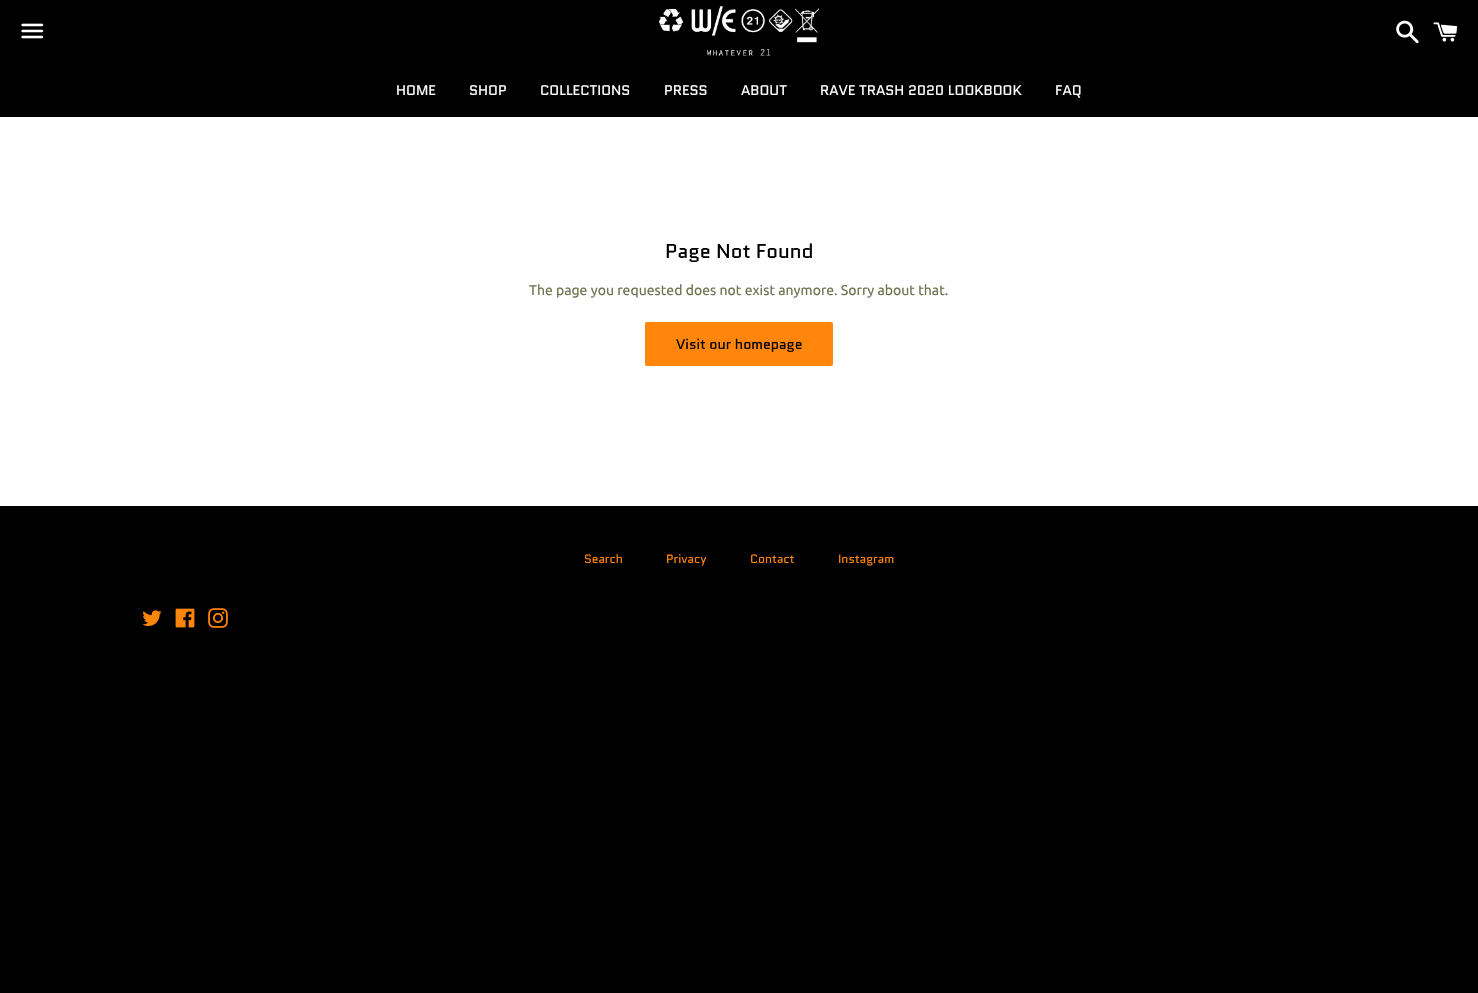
#include "include/core/SkBlurTypes.h"
#include "include/core/SkCanvas.h"
#include "include/core/SkData.h"
#include "include/core/SkFont.h"
#include "include/core/SkFontMgr.h"
#include "include/core/SkImage.h"
#include "include/core/SkMaskFilter.h"
#include "include/core/SkPaint.h"
#include "include/core/SkPathBuilder.h"
#include "include/core/SkTextBlob.h"
#include "include/effects/SkDashPathEffect.h"
#include "include/effects/SkGradientShader.h"
#include "include/utils/SkParsePath.h"

extern sk_sp<SkFontMgr> fontMgr;

void draw(SkCanvas* canvas) {
  SkPaint p;
  p.setAntiAlias(true);
  canvas->clear(SK_ColorBLACK);
  p.setColor(SK_ColorWHITE);
  canvas->drawRect(SkRect::MakeLTRB(0, 117, 1478, 506), p);
  canvas->drawImageRect(SkImages::DeferredFromEncodedData(SkData::MakeFromFileName("images/1.png")), SkRect::MakeLTRB(21, 23, 44, 39), SkSamplingOptions());
  canvas->drawImageRect(SkImages::DeferredFromEncodedData(SkData::MakeFromFileName("images/2.png")), SkRect::MakeLTRB(659, 6, 819, 56), SkSamplingOptions());
  canvas->drawImageRect(SkImages::DeferredFromEncodedData(SkData::MakeFromFileName("images/3.png")), SkRect::MakeLTRB(1396, 20, 1419, 44), SkSamplingOptions());
  canvas->drawImageRect(SkImages::DeferredFromEncodedData(SkData::MakeFromFileName("images/4.png")), SkRect::MakeLTRB(1433, 22, 1458, 42), SkSamplingOptions());
  p.setColor(SkColorSetRGB(255, 133, 11));
  canvas->drawRoundRect(SkRect::MakeLTRB(645, 322, 833, 366), 2, 2, p);
  canvas->drawImageRect(SkImages::DeferredFromEncodedData(SkData::MakeFromFileName("images/5.png")), SkRect::MakeLTRB(142, 610, 162, 626), SkSamplingOptions());
  canvas->drawImageRect(SkImages::DeferredFromEncodedData(SkData::MakeFromFileName("images/6.png")), SkRect::MakeLTRB(175, 608, 195, 628), SkSamplingOptions());
  canvas->drawImageRect(SkImages::DeferredFromEncodedData(SkData::MakeFromFileName("images/7.png")), SkRect::MakeLTRB(208, 608, 228, 628), SkSamplingOptions());
  SkFont font1(fontMgr->matchFamilyStyle("Quantico", SkFontStyle::Normal()), 14);
  font1.setSubpixel(true);
  p.setColor(SK_ColorWHITE);
  canvas->drawString("HOME", 396, 95, font1, p);
  canvas->drawString("SHOP", 469, 95, font1, p);
  canvas->drawString("COLLECTIONS", 540, 95, font1, p);
  canvas->drawString("PRESS", 664, 95, font1, p);
  canvas->drawString("ABOUT", 741, 95, font1, p);
  canvas->drawString("RAVE TRASH 2020 LOOKBOOK", 820, 95, font1, p);
  canvas->drawString("FAQ", 1055, 95, font1, p);
  SkFont font2(fontMgr->matchFamilyStyle("Quantico", SkFontStyle::Normal()), 20);
  font2.setSubpixel(true);
  p.setColor(SK_ColorBLACK);
  canvas->drawString("Page Not Found", 665, 258, font2, p);
  SkFont font3(fontMgr->matchFamilyStyle("Ubuntu", SkFontStyle::Normal()), 14);
  font3.setSubpixel(true);
  p.setColor(SkColorSetRGB(112, 116, 81));
  canvas->drawString("The page you requested does not exist anymore. Sorry about that.", 529, 295, font3, p);
  p.setColor(SK_ColorBLACK);
  canvas->drawString("Visit our homepage", 676, 349, font1, p);
  SkFont font4(fontMgr->matchFamilyStyle("Quantico", SkFontStyle::Normal()), 12);
  font4.setSubpixel(true);
  p.setColor(SkColorSetRGB(255, 133, 11));
  canvas->drawString("Search", 584, 563, font4, p);
  canvas->drawString("Privacy", 666, 563, font4, p);
  canvas->drawString("Contact", 750, 563, font4, p);
  canvas->drawString("Instagram", 838, 563, font4, p);
}
